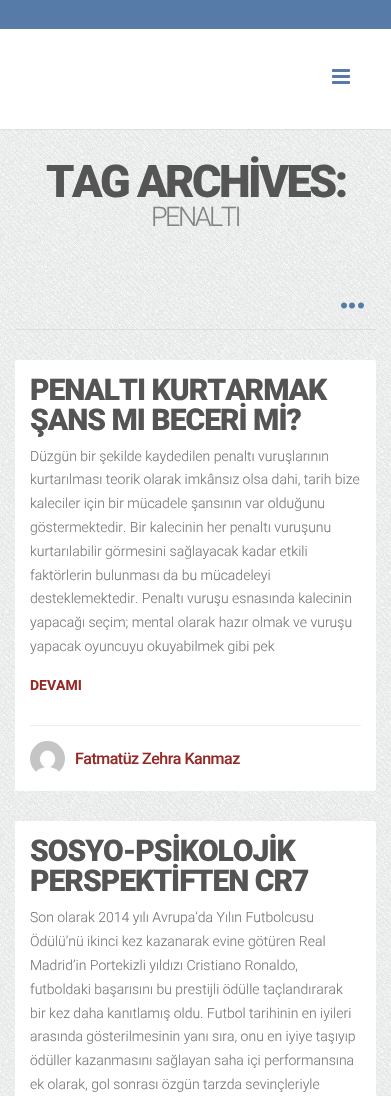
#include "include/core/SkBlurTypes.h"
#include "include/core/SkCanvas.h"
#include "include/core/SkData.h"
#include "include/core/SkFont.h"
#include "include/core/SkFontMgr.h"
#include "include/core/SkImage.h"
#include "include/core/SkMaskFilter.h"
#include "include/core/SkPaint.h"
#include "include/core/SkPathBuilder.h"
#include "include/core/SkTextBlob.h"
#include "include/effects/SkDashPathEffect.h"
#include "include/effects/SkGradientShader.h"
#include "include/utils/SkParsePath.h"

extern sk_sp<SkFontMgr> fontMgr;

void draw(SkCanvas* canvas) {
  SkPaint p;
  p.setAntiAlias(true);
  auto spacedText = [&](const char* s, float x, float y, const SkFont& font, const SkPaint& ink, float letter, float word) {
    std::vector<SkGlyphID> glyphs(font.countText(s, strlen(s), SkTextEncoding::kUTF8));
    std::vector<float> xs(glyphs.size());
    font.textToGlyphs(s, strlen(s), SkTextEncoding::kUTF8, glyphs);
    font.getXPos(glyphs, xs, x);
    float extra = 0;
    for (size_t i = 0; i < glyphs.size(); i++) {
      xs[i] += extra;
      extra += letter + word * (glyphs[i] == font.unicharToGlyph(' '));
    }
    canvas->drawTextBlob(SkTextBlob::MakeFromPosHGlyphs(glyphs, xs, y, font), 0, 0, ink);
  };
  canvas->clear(SK_ColorWHITE);
  canvas->drawImageRect(SkImages::DeferredFromEncodedData(SkData::MakeFromFileName("images/1.png")), SkRect::MakeLTRB(0, 129, 391, 1096), SkSamplingOptions());
  p.setColor(SkColorSetARGB(13, 0, 0, 0));
  canvas->drawRect(SkRect::MakeLTRB(0, 129, 391, 130), p);
  p.setColor(SkColorSetRGB(86, 123, 169));
  canvas->drawRect(SkRect::MakeLTRB(0, 0, 391, 29), p);
  canvas->drawImageRect(SkImages::DeferredFromEncodedData(SkData::MakeFromFileName("images/2.png")), SkRect::MakeLTRB(332, 69, 350, 84), SkSamplingOptions());
  p.setColor(SkColorSetRGB(221, 221, 221));
  canvas->drawRect(SkRect::MakeLTRB(15, 329, 376, 330), p);
  canvas->drawImageRect(SkImages::DeferredFromEncodedData(SkData::MakeFromFileName("images/3.png")), SkRect::MakeLTRB(341, 302, 347, 309), SkSamplingOptions());
  canvas->drawImageRect(SkImages::DeferredFromEncodedData(SkData::MakeFromFileName("images/4.png")), SkRect::MakeLTRB(349, 302, 355, 309), SkSamplingOptions());
  canvas->drawImageRect(SkImages::DeferredFromEncodedData(SkData::MakeFromFileName("images/5.png")), SkRect::MakeLTRB(358, 302, 364, 309), SkSamplingOptions());
  p.setColor(SK_ColorWHITE);
  canvas->drawRoundRect(SkRect::MakeLTRB(15, 360, 376, 791), 2, 2, p);
  p.setColor(SkColorSetRGB(238, 238, 238));
  canvas->drawRect(SkRect::MakeLTRB(30, 725, 361, 726), p);
  canvas->drawImageRect(SkImages::DeferredFromEncodedData(SkData::MakeFromFileName("images/6.png")), SkRect::MakeLTRB(30, 741, 65, 772), SkSamplingOptions());
  p.setColor(SK_ColorWHITE);
  canvas->drawRoundRect(SkRect::MakeLTRB(15, 821, 376, 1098), 2, 2, p);
  SkFont font1(fontMgr->matchFamilyStyle("Roboto", SkFontStyle(900, SkFontStyle::kNormal_Width, SkFontStyle::kUpright_Slant)), 45);
  font1.setSubpixel(true);
  p.setColor(SkColorSetRGB(85, 85, 85));
  spacedText("TAG ARCHİVES:", 46, 197, font1, p, -2.5f, 0);
  SkFont font2(fontMgr->matchFamilyStyle("Roboto", SkFontStyle(300, SkFontStyle::kNormal_Width, SkFontStyle::kUpright_Slant)), 27);
  font2.setSubpixel(true);
  p.setColor(SkColorSetRGB(130, 131, 131));
  spacedText("PENALTI", 151, 226, font2, p, -2.5f, 0);
  SkFont font3(fontMgr->matchFamilyStyle("Roboto", SkFontStyle(900, SkFontStyle::kNormal_Width, SkFontStyle::kUpright_Slant)), 30);
  font3.setSubpixel(true);
  p.setColor(SkColorSetRGB(85, 85, 85));
  spacedText("PENALTI KURTARMAK", 30, 400, font3, p, -1, 0);
  spacedText("ŞANS MI BECERİ Mİ?", 30, 430, font3, p, -1, 0);
  SkFont font4(fontMgr->matchFamilyStyle("Roboto", SkFontStyle(300, SkFontStyle::kNormal_Width, SkFontStyle::kUpright_Slant)), 14);
  font4.setSubpixel(true);
  p.setColor(SkColorSetRGB(119, 119, 119));
  canvas->drawString("Düzgün bir şekilde kaydedilen penaltı vuruşlarının", 30, 461, font4, p);
  canvas->drawString("kurtarılması teorik olarak imkânsız olsa dahi, tarih bize", 30, 484, font4, p);
  canvas->drawString("kaleciler için bir mücadele şansının var olduğunu", 30, 508, font4, p);
  canvas->drawString("göstermektedir. Bir kalecinin her penaltı vuruşunu", 30, 532, font4, p);
  canvas->drawString("kurtarılabilir görmesini sağlayacak kadar etkili", 30, 556, font4, p);
  canvas->drawString("faktörlerin bulunması da bu mücadeleyi", 30, 580, font4, p);
  canvas->drawString("desteklemektedir. Penaltı vuruşu esnasında kalecinin", 30, 603, font4, p);
  canvas->drawString("yapacağı seçim; mental olarak hazır olmak ve vuruşu", 30, 627, font4, p);
  canvas->drawString("yapacak oyuncuyu okuyabilmek gibi pek", 30, 651, font4, p);
  SkFont font5(fontMgr->matchFamilyStyle("Roboto", SkFontStyle::Bold()), 14);
  font5.setSubpixel(true);
  p.setColor(SkColorSetRGB(150, 42, 39));
  canvas->drawString("DEVAMI", 30, 690, font5, p);
  SkFont font6(fontMgr->matchFamilyStyle("Roboto", SkFontStyle(500, SkFontStyle::kNormal_Width, SkFontStyle::kUpright_Slant)), 16);
  font6.setSubpixel(true);
  spacedText("Fatmatüz Zehra Kanmaz", 75, 764, font6, p, -0.5f, 0);
  p.setColor(SkColorSetRGB(85, 85, 85));
  spacedText("SOSYO-PSİKOLOJİK", 30, 861, font3, p, -1, 0);
  spacedText("PERSPEKTİFTEN CR7", 30, 891, font3, p, -1, 0);
  p.setColor(SkColorSetRGB(119, 119, 119));
  canvas->drawString("Son olarak 2014 yılı Avrupa’da Yılın Futbolcusu", 30, 922, font4, p);
  canvas->drawString("Ödülü’nü ikinci kez kazanarak evine götüren Real", 30, 946, font4, p);
  canvas->drawString("Madrid’in Portekizli yıldızı Cristiano Ronaldo,", 30, 970, font4, p);
  canvas->drawString("futboldaki başarısını bu prestijli ödülle taçlandırarak", 30, 994, font4, p);
  canvas->drawString("bir kez daha kanıtlamış oldu. Futbol tarihinin en iyileri", 30, 1018, font4, p);
  canvas->drawString("arasında gösterilmesinin yanı sıra, onu en iyiye taşıyıp", 30, 1041, font4, p);
  canvas->drawString("ödüller kazanmasını sağlayan saha içi performansına", 30, 1065, font4, p);
  canvas->drawString("ek olarak, gol sonrası özgün tarzda sevinçleriyle", 30, 1089, font4, p);
}
